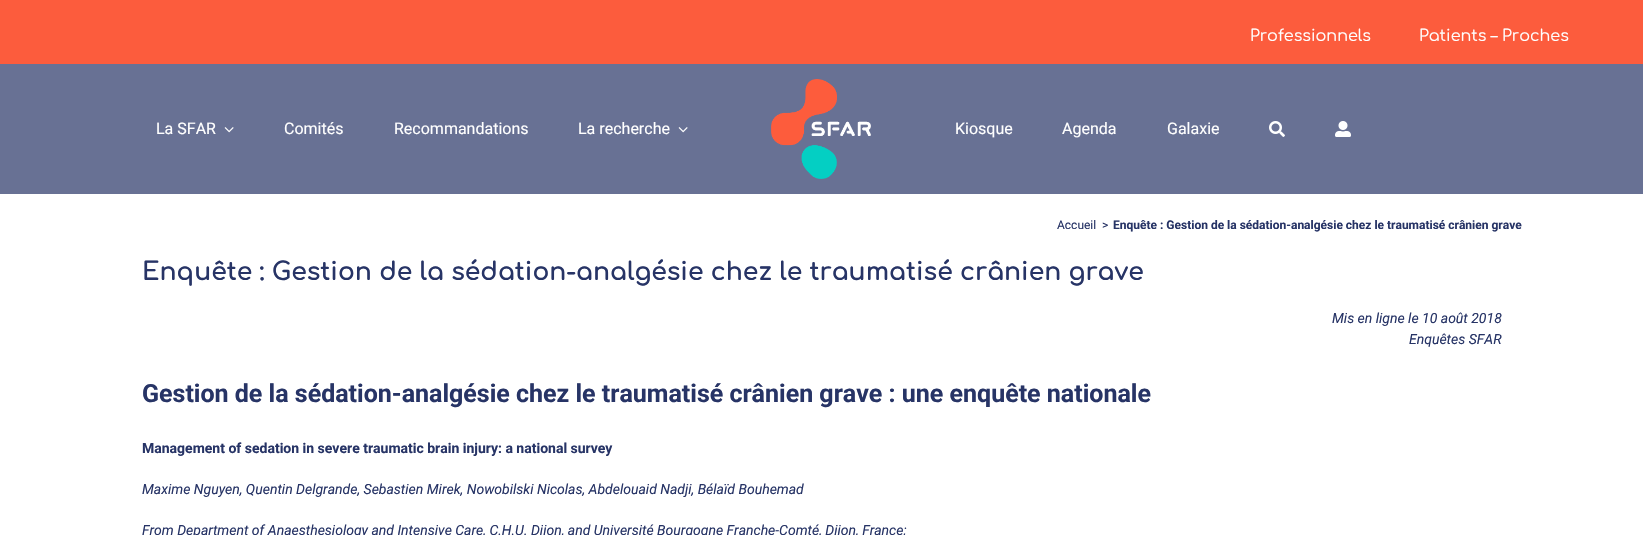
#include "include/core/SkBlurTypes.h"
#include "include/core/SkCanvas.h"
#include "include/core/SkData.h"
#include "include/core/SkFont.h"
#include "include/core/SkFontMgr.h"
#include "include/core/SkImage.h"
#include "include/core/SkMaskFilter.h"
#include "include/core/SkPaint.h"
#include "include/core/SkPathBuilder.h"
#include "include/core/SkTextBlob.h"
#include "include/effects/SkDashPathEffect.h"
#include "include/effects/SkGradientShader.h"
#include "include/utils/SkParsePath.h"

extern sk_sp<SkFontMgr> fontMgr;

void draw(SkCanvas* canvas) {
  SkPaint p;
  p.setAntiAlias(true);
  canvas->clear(SK_ColorWHITE);
  p.setColor(SkColorSetRGB(252, 92, 61));
  canvas->drawRect(SkRect::MakeLTRB(0, 0, 1643, 64), p);
  p.setColor(SkColorSetRGB(104, 113, 148));
  canvas->drawRect(SkRect::MakeLTRB(0, 64, 1643, 194), p);
  canvas->drawImageRect(SkImages::DeferredFromEncodedData(SkData::MakeFromFileName("images/1.png")), SkRect::MakeLTRB(224, 127, 234, 133), SkSamplingOptions());
  canvas->drawImageRect(SkImages::DeferredFromEncodedData(SkData::MakeFromFileName("images/1.png")), SkRect::MakeLTRB(678, 127, 688, 133), SkSamplingOptions());
  canvas->drawImageRect(SkImages::DeferredFromEncodedData(SkData::MakeFromFileName("images/2.png")), SkRect::MakeLTRB(771, 79, 871, 179), SkSamplingOptions());
  canvas->drawImageRect(SkImages::DeferredFromEncodedData(SkData::MakeFromFileName("images/3.png")), SkRect::MakeLTRB(1269, 121, 1285, 137), SkSamplingOptions());
  canvas->drawImageRect(SkImages::DeferredFromEncodedData(SkData::MakeFromFileName("images/4.png")), SkRect::MakeLTRB(1335, 121, 1351, 137), SkSamplingOptions());
  SkFont font1(fontMgr->matchFamilyStyle("Comfortaa", SkFontStyle::Normal()), 16);
  font1.setSubpixel(true);
  p.setColor(SK_ColorWHITE);
  canvas->drawString("Professionnels", 1250, 41, font1, p);
  canvas->drawString("Patients – Proches", 1419, 41, font1, p);
  SkFont font2(fontMgr->matchFamilyStyle("Roboto", SkFontStyle::Normal()), 16);
  font2.setSubpixel(true);
  canvas->drawString("La SFAR", 156, 134, font2, p);
  canvas->drawString("Comités", 284, 134, font2, p);
  canvas->drawString("Recommandations", 394, 134, font2, p);
  canvas->drawString("La recherche", 578, 134, font2, p);
  canvas->drawString("Kiosque", 955, 134, font2, p);
  canvas->drawString("Agenda", 1062, 134, font2, p);
  canvas->drawString("Galaxie", 1167, 134, font2, p);
  SkFont font3(fontMgr->matchFamilyStyle("Roboto", SkFontStyle::Normal()), 12);
  font3.setSubpixel(true);
  p.setColor(SkColorSetRGB(39, 52, 102));
  canvas->drawString("Accueil", 1057, 229, font3, p);
  canvas->drawString(">", 1102, 229, font3, p);
  SkFont font4(fontMgr->matchFamilyStyle("Roboto", SkFontStyle::Bold()), 12);
  font4.setSubpixel(true);
  canvas->drawString("Enquête : Gestion de la sédation-analgésie chez le traumatisé crânien grave", 1113, 229, font4, p);
  SkFont font5(fontMgr->matchFamilyStyle("Comfortaa", SkFontStyle::Bold()), 25);
  font5.setSubpixel(true);
  canvas->drawString("Enquête : Gestion de la sédation-analgésie chez le traumatisé crânien grave", 142, 280, font5, p);
  SkFont font6(fontMgr->matchFamilyStyle("Roboto", SkFontStyle::Italic()), 14);
  font6.setSubpixel(true);
  canvas->drawString("Mis en ligne le 10 août 2018", 1332, 323, font6, p);
  canvas->drawString("Enquêtes SFAR", 1409, 344, font6, p);
  SkFont font7(fontMgr->matchFamilyStyle("Roboto", SkFontStyle::Bold()), 25);
  font7.setSubpixel(true);
  canvas->drawString("Gestion de la sédation-analgésie chez le traumatisé crânien grave : une enquête nationale", 142, 402, font7, p);
  SkFont font8(fontMgr->matchFamilyStyle("Roboto", SkFontStyle::Bold()), 14);
  font8.setSubpixel(true);
  canvas->drawString("Management of sedation in severe traumatic brain injury: a national survey", 142, 453, font8, p);
  canvas->drawString("Maxime Nguyen, Quentin Delgrande, Sebastien Mirek, Nowobilski Nicolas, Abdelouaid Nadji, Bélaïd Bouhemad", 142, 494, font6, p);
  canvas->drawString("From Department of Anaesthesiology and Intensive Care, C.H.U. Dijon, and Université Bourgogne Franche-Comté, Dijon, France;", 142, 535, font6, p);
}
